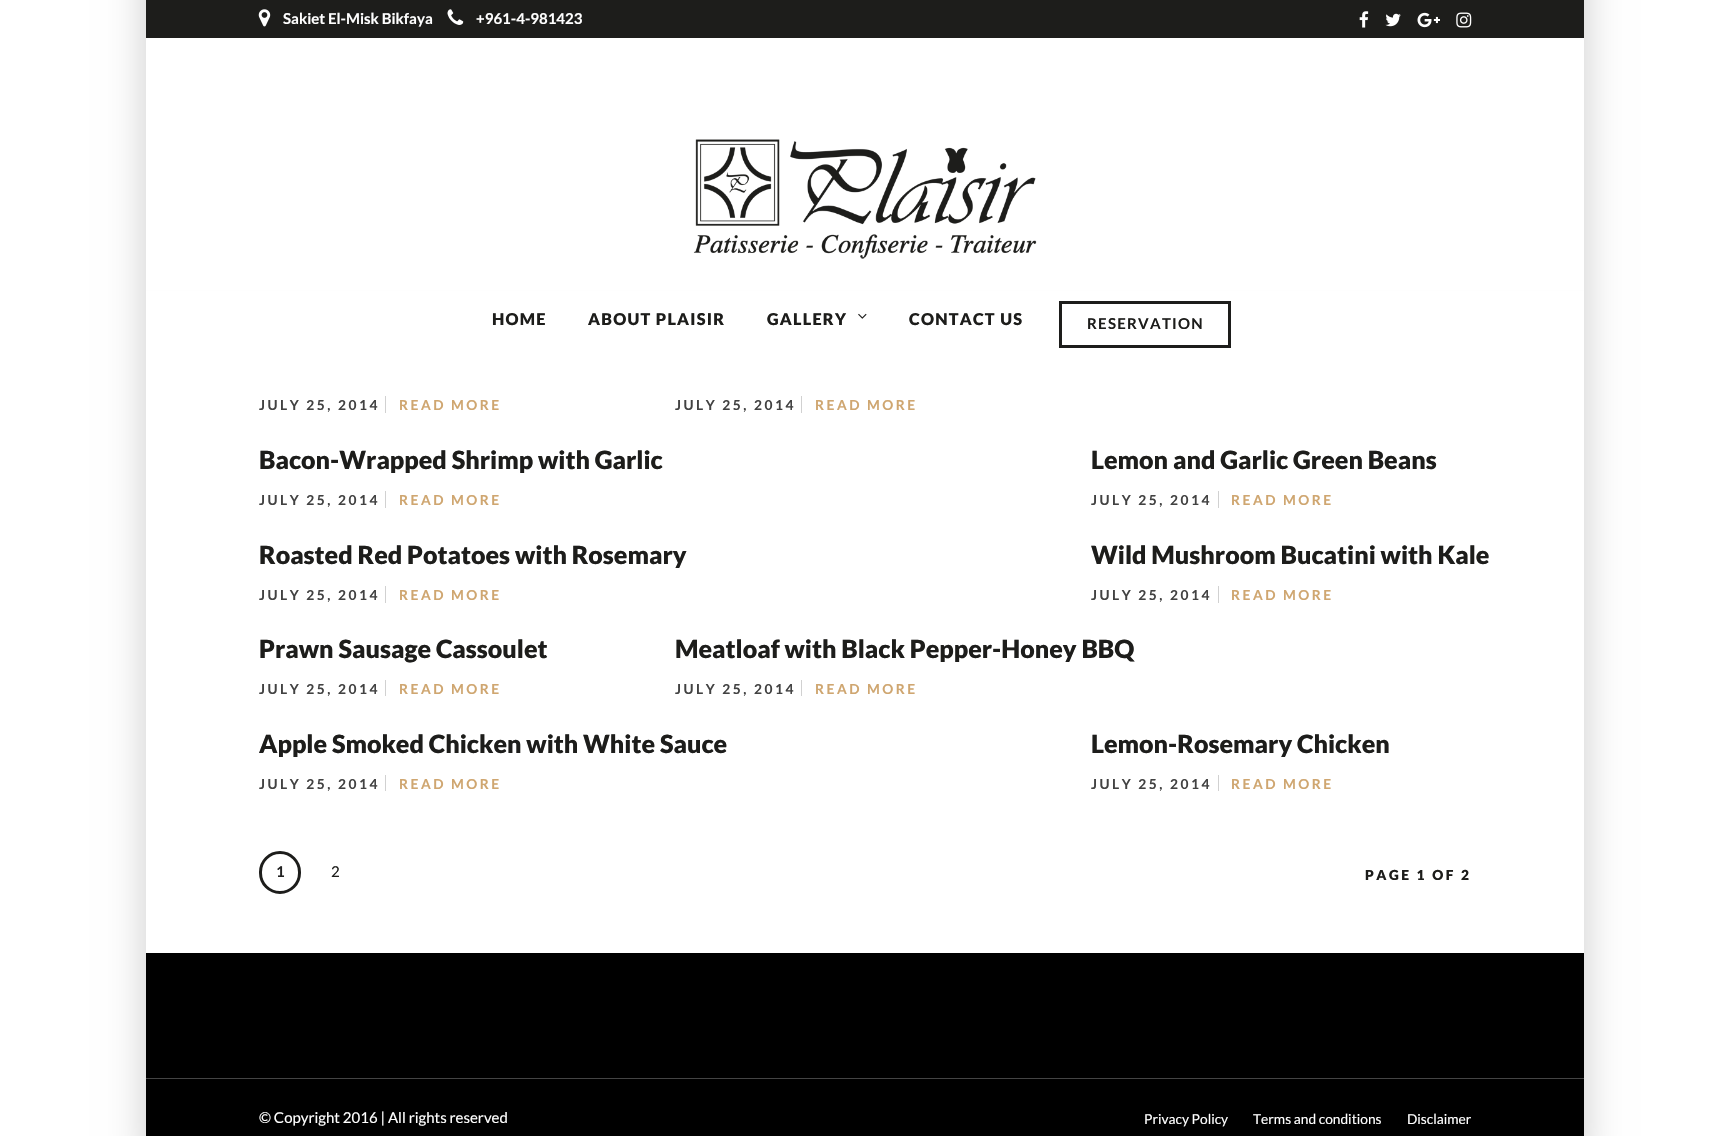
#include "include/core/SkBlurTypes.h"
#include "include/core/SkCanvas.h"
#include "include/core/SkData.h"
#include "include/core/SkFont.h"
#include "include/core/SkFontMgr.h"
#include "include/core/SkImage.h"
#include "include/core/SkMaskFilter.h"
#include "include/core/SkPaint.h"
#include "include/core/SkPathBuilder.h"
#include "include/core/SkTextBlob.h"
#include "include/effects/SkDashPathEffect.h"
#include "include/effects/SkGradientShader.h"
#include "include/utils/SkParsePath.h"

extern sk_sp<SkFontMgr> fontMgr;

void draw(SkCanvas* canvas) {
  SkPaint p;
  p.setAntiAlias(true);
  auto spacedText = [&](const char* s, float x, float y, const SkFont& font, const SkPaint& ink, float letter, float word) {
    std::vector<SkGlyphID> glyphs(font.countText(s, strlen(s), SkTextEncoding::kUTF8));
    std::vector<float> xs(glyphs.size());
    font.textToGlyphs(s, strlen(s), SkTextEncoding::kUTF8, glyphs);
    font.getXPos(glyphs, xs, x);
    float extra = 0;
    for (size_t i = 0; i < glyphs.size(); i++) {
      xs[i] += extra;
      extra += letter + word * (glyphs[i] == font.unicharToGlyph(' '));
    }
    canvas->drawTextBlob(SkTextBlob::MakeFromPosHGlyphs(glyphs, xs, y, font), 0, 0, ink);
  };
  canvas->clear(SK_ColorWHITE);
  p.setColor(SkColorSetARGB(51, 0, 0, 0));
  p.setMaskFilter(SkMaskFilter::MakeBlur(kNormal_SkBlurStyle, 19));
  canvas->drawRect(SkRect::MakeLTRB(146, -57, 1584, 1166), p);
  p.setMaskFilter(nullptr);
  p.setColor(SK_ColorWHITE);
  canvas->drawRect(SkRect::MakeLTRB(146, 38, 1584, 953), p);
  p.setColor(SkColorSetRGB(29, 29, 27));
  canvas->drawRect(SkRect::MakeLTRB(146, 0, 1584, 38), p);
  canvas->drawImageRect(SkImages::DeferredFromEncodedData(SkData::MakeFromFileName("images/1.png")), SkRect::MakeLTRB(258, 9, 271, 27), SkSamplingOptions());
  canvas->drawImageRect(SkImages::DeferredFromEncodedData(SkData::MakeFromFileName("images/2.png")), SkRect::MakeLTRB(447, 9, 464, 25), SkSamplingOptions());
  canvas->drawImageRect(SkImages::DeferredFromEncodedData(SkData::MakeFromFileName("images/3.png")), SkRect::MakeLTRB(1359, 11, 1369, 28), SkSamplingOptions());
  canvas->drawImageRect(SkImages::DeferredFromEncodedData(SkData::MakeFromFileName("images/4.png")), SkRect::MakeLTRB(1385, 13, 1401, 27), SkSamplingOptions());
  canvas->drawImageRect(SkImages::DeferredFromEncodedData(SkData::MakeFromFileName("images/5.png")), SkRect::MakeLTRB(1417, 12, 1440, 28), SkSamplingOptions());
  canvas->drawImageRect(SkImages::DeferredFromEncodedData(SkData::MakeFromFileName("images/6.png")), SkRect::MakeLTRB(1456, 12, 1472, 28), SkSamplingOptions());
  p.setColor(SkColorSetRGB(225, 225, 225));
  canvas->drawRect(SkRect::MakeLTRB(146, 290, 1584, 291), p);
  p.setColor(SkColorSetARGB(242, 255, 255, 255));
  canvas->drawRect(SkRect::MakeLTRB(146, 290, 1584, 291), p);
  canvas->drawImageRect(SkImages::DeferredFromEncodedData(SkData::MakeFromFileName("images/7.png")), SkRect::MakeLTRB(693, 139, 1037, 259), SkSamplingOptions());
  canvas->drawImageRect(SkImages::DeferredFromEncodedData(SkData::MakeFromFileName("images/8.png")), SkRect::MakeLTRB(858, 313, 867, 319), SkSamplingOptions());
  p.setStyle(SkPaint::kStroke_Style);
  p.setStrokeWidth(3);
  p.setColor(SkColorSetRGB(29, 29, 27));
  canvas->drawRect(SkRect::MakeLTRB(1060.5f, 302.5f, 1229.5f, 346.5f), p);
  p.setStyle(SkPaint::kFill_Style);
  p.setColor(SkColorSetRGB(209, 209, 209));
  canvas->drawRect(SkRect::MakeLTRB(385, 396, 386, 413), p);
  canvas->drawRect(SkRect::MakeLTRB(801, 396, 802, 413), p);
  canvas->drawRect(SkRect::MakeLTRB(385, 491, 386, 508), p);
  canvas->drawRect(SkRect::MakeLTRB(1218, 491, 1219, 508), p);
  canvas->drawRect(SkRect::MakeLTRB(385, 586, 386, 603), p);
  canvas->drawRect(SkRect::MakeLTRB(1218, 586, 1219, 603), p);
  canvas->drawRect(SkRect::MakeLTRB(385, 680, 386, 696), p);
  canvas->drawRect(SkRect::MakeLTRB(801, 680, 802, 696), p);
  canvas->drawRect(SkRect::MakeLTRB(385, 775, 386, 791), p);
  canvas->drawRect(SkRect::MakeLTRB(1218, 775, 1219, 791), p);
  p.setStyle(SkPaint::kStroke_Style);
  p.setColor(SkColorSetRGB(29, 29, 27));
  canvas->drawRoundRect(SkRect::MakeLTRB(260.5f, 852.5f, 299.5f, 892.5f), 19.5f, 19.5f, p);
  p.setStyle(SkPaint::kFill_Style);
  p.setColor(SK_ColorBLACK);
  canvas->drawRect(SkRect::MakeLTRB(146, 953, 1584, 1136), p);
  p.setColor(SkColorSetRGB(68, 68, 68));
  canvas->drawRect(SkRect::MakeLTRB(146, 1078, 1584, 1079), p);
  SkFont font1(fontMgr->matchFamilyStyle("Lato", SkFontStyle::Bold()), 15);
  font1.setSubpixel(true);
  p.setColor(SK_ColorWHITE);
  canvas->drawString("Sakiet El-Misk Bikfaya", 283, 24, font1, p);
  canvas->drawString("+961-4-981423", 476, 24, font1, p);
  SkFont font2(fontMgr->matchFamilyStyle("Lato", SkFontStyle(900, SkFontStyle::kNormal_Width, SkFontStyle::kUpright_Slant)), 16.25f);
  font2.setSubpixel(true);
  p.setColor(SkColorSetRGB(29, 29, 27));
  spacedText("HOME", 492, 325, font2, p, 1.25f, 0);
  spacedText("ABOUT PLAISIR", 588, 325, font2, p, 1.25f, 0);
  spacedText("GALLERY", 767, 325, font2, p, 1.25f, 0);
  spacedText("CONTACT US", 909, 325, font2, p, 1.25f, 0);
  spacedText("RESERVATION", 1087, 329, font1, p, 1.25f, 0);
  SkFont font3(fontMgr->matchFamilyStyle("Lato", SkFontStyle::Bold()), 13.75f);
  font3.setSubpixel(true);
  p.setColor(SkColorSetRGB(66, 66, 66));
  spacedText("JULY 25, 2014", 259, 410, font3, p, 2.5f, 0);
  p.setColor(SkColorSetRGB(207, 166, 112));
  spacedText("READ MORE", 399, 410, font3, p, 2.5f, 0);
  p.setColor(SkColorSetRGB(66, 66, 66));
  spacedText("JULY 25, 2014", 675, 410, font3, p, 2.5f, 0);
  p.setColor(SkColorSetRGB(207, 166, 112));
  spacedText("READ MORE", 815, 410, font3, p, 2.5f, 0);
  SkFont font4(fontMgr->matchFamilyStyle("Lato", SkFontStyle(900, SkFontStyle::kNormal_Width, SkFontStyle::kUpright_Slant)), 25);
  font4.setSubpixel(true);
  p.setColor(SkColorSetRGB(29, 29, 27));
  canvas->drawString("Bacon-Wrapped Shrimp with Garlic", 259, 469, font4, p);
  p.setColor(SkColorSetRGB(66, 66, 66));
  spacedText("JULY 25, 2014", 259, 505, font3, p, 2.5f, 0);
  p.setColor(SkColorSetRGB(207, 166, 112));
  spacedText("READ MORE", 399, 505, font3, p, 2.5f, 0);
  p.setColor(SkColorSetRGB(29, 29, 27));
  canvas->drawString("Lemon and Garlic Green Beans", 1091, 469, font4, p);
  p.setColor(SkColorSetRGB(66, 66, 66));
  spacedText("JULY 25, 2014", 1091, 505, font3, p, 2.5f, 0);
  p.setColor(SkColorSetRGB(207, 166, 112));
  spacedText("READ MORE", 1231, 505, font3, p, 2.5f, 0);
  p.setColor(SkColorSetRGB(29, 29, 27));
  canvas->drawString("Roasted Red Potatoes with Rosemary", 259, 564, font4, p);
  p.setColor(SkColorSetRGB(66, 66, 66));
  spacedText("JULY 25, 2014", 259, 600, font3, p, 2.5f, 0);
  p.setColor(SkColorSetRGB(207, 166, 112));
  spacedText("READ MORE", 399, 600, font3, p, 2.5f, 0);
  p.setColor(SkColorSetRGB(29, 29, 27));
  canvas->drawString("Wild Mushroom Bucatini with Kale", 1091, 564, font4, p);
  p.setColor(SkColorSetRGB(66, 66, 66));
  spacedText("JULY 25, 2014", 1091, 600, font3, p, 2.5f, 0);
  p.setColor(SkColorSetRGB(207, 166, 112));
  spacedText("READ MORE", 1231, 600, font3, p, 2.5f, 0);
  p.setColor(SkColorSetRGB(29, 29, 27));
  canvas->drawString("Prawn Sausage Cassoulet", 259, 658, font4, p);
  p.setColor(SkColorSetRGB(66, 66, 66));
  spacedText("JULY 25, 2014", 259, 694, font3, p, 2.5f, 0);
  p.setColor(SkColorSetRGB(207, 166, 112));
  spacedText("READ MORE", 399, 694, font3, p, 2.5f, 0);
  p.setColor(SkColorSetRGB(29, 29, 27));
  canvas->drawString("Meatloaf with Black Pepper-Honey BBQ", 675, 658, font4, p);
  p.setColor(SkColorSetRGB(66, 66, 66));
  spacedText("JULY 25, 2014", 675, 694, font3, p, 2.5f, 0);
  p.setColor(SkColorSetRGB(207, 166, 112));
  spacedText("READ MORE", 815, 694, font3, p, 2.5f, 0);
  p.setColor(SkColorSetRGB(29, 29, 27));
  canvas->drawString("Apple Smoked Chicken with White Sauce", 259, 753, font4, p);
  p.setColor(SkColorSetRGB(66, 66, 66));
  spacedText("JULY 25, 2014", 259, 789, font3, p, 2.5f, 0);
  p.setColor(SkColorSetRGB(207, 166, 112));
  spacedText("READ MORE", 399, 789, font3, p, 2.5f, 0);
  p.setColor(SkColorSetRGB(29, 29, 27));
  canvas->drawString("Lemon-Rosemary Chicken", 1091, 753, font4, p);
  p.setColor(SkColorSetRGB(66, 66, 66));
  spacedText("JULY 25, 2014", 1091, 789, font3, p, 2.5f, 0);
  p.setColor(SkColorSetRGB(207, 166, 112));
  spacedText("READ MORE", 1231, 789, font3, p, 2.5f, 0);
  p.setColor(SkColorSetRGB(34, 34, 34));
  canvas->drawString("1", 276, 877, font1, p);
  SkFont font5(fontMgr->matchFamilyStyle("Lato", SkFontStyle::Normal()), 15);
  font5.setSubpixel(true);
  p.setColor(SkColorSetRGB(29, 29, 27));
  canvas->drawString("2", 331, 877, font5, p);
  SkFont font6(fontMgr->matchFamilyStyle("Lato", SkFontStyle(900, SkFontStyle::kNormal_Width, SkFontStyle::kUpright_Slant)), 13.75f);
  font6.setSubpixel(true);
  spacedText("PAGE 1 OF 2", 1365, 880, font6, p, 2.5f, 0);
  p.setColor(SK_ColorWHITE);
  canvas->drawString("© Copyright 2016 | All rights reserved", 259, 1123, font5, p);
  SkFont font7(fontMgr->matchFamilyStyle("Lato", SkFontStyle::Normal()), 13.75f);
  font7.setSubpixel(true);
  canvas->drawString("Privacy Policy", 1144, 1124, font7, p);
  canvas->drawString("Terms and conditions", 1253, 1124, font7, p);
  canvas->drawString("Disclaimer", 1407, 1124, font7, p);
}
